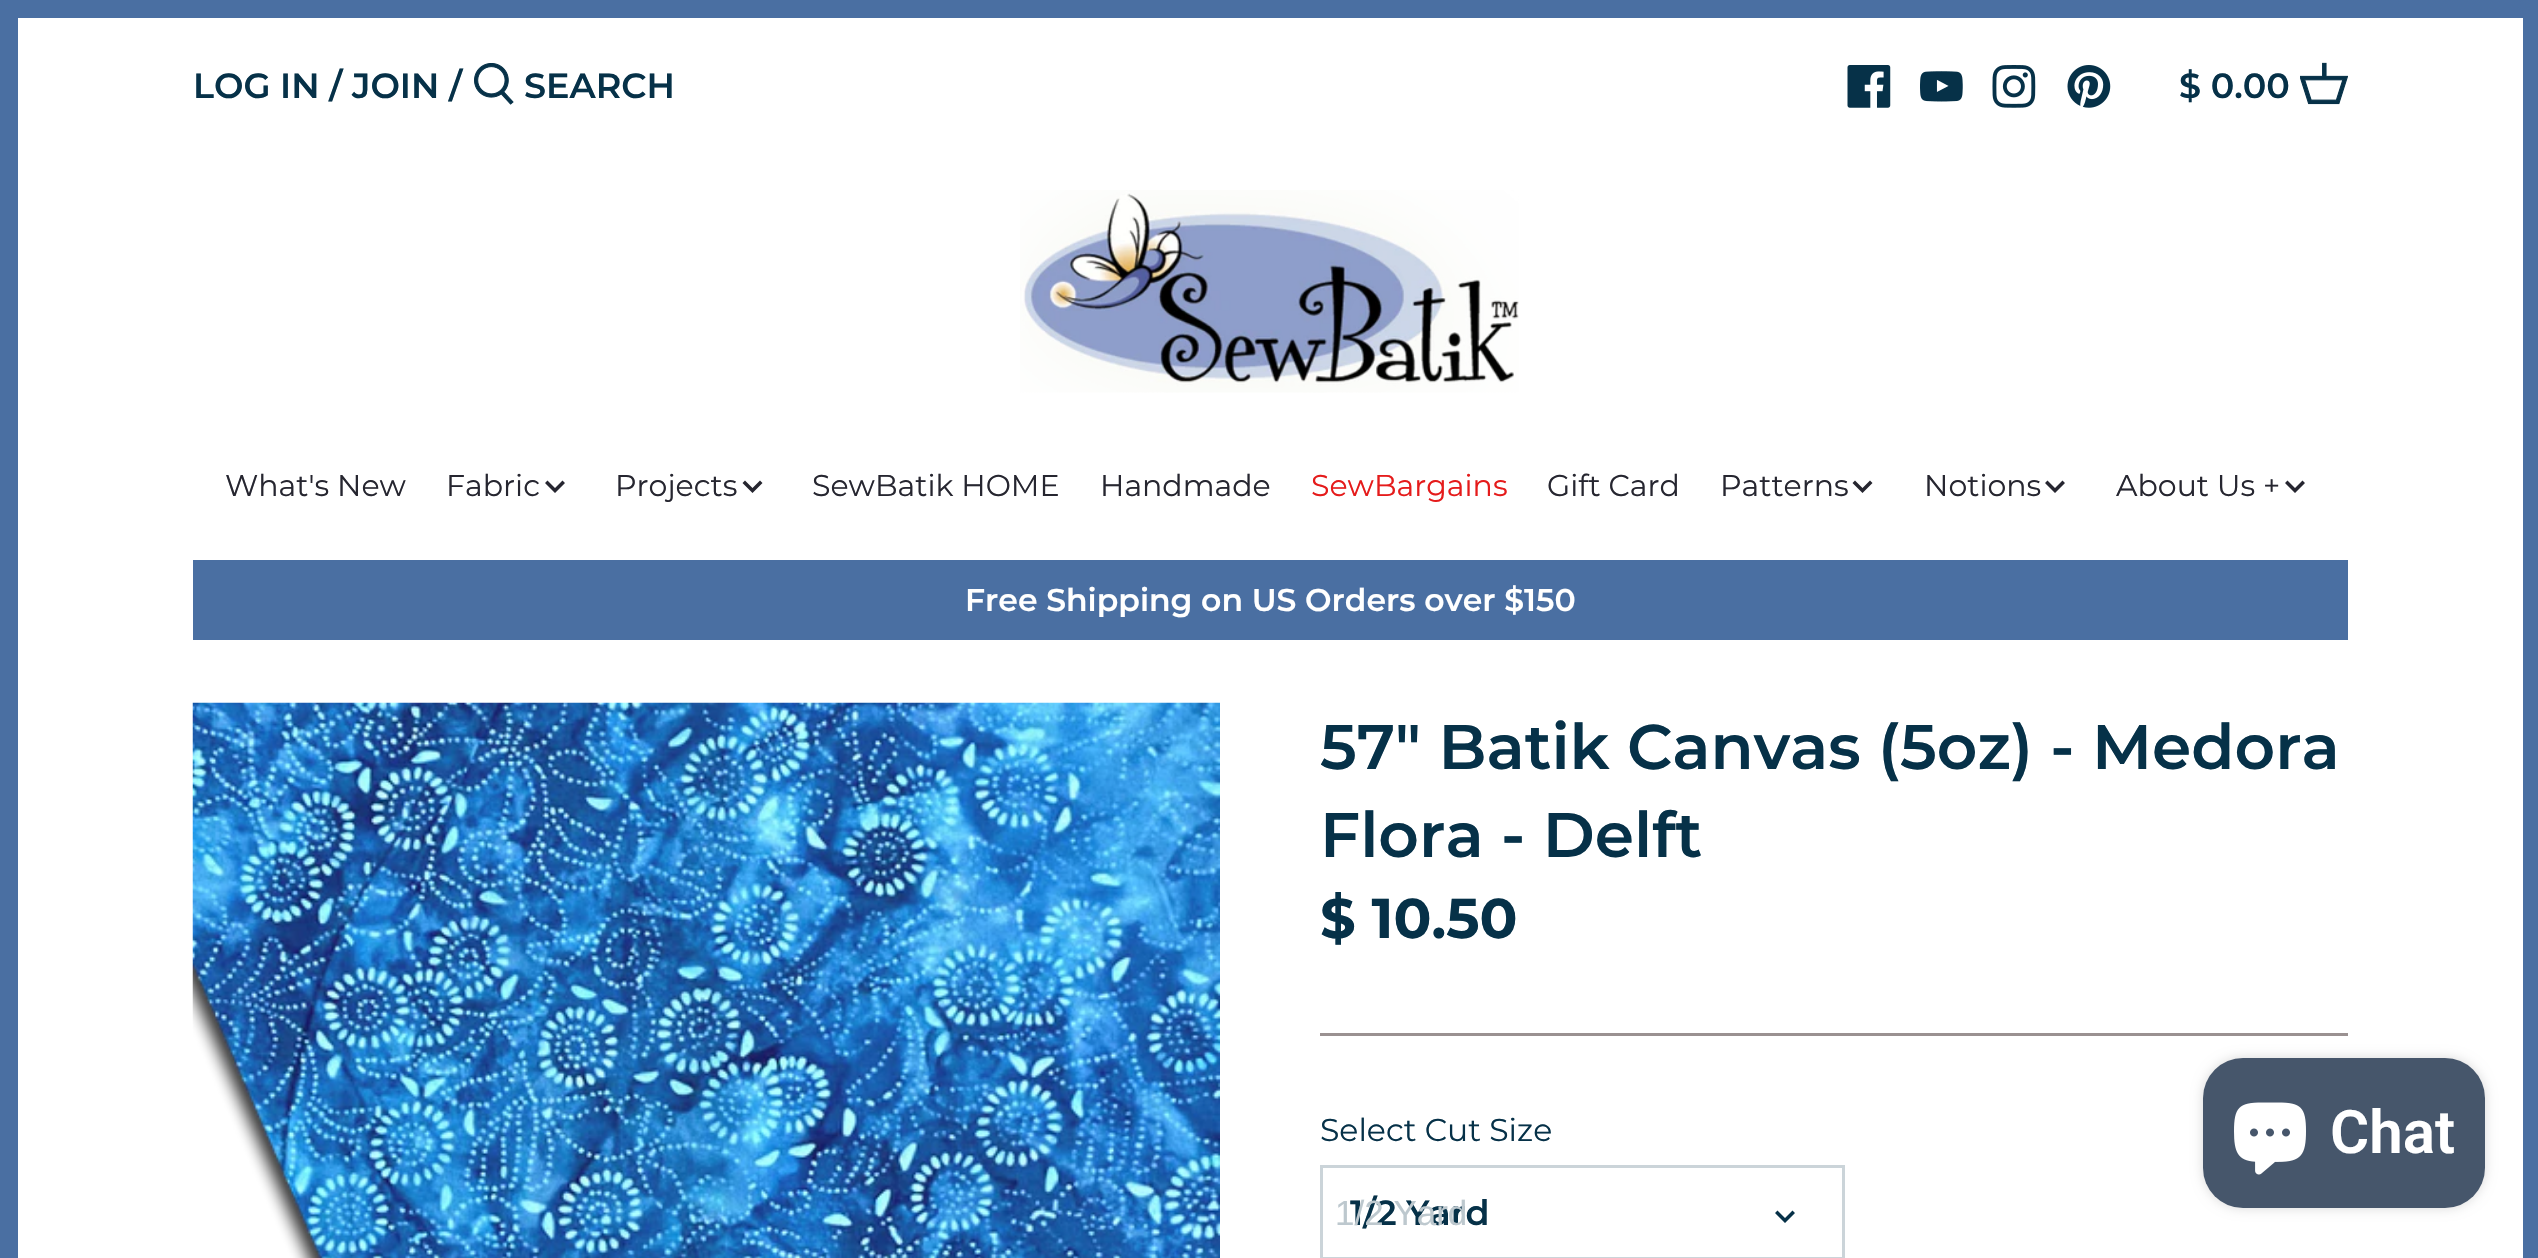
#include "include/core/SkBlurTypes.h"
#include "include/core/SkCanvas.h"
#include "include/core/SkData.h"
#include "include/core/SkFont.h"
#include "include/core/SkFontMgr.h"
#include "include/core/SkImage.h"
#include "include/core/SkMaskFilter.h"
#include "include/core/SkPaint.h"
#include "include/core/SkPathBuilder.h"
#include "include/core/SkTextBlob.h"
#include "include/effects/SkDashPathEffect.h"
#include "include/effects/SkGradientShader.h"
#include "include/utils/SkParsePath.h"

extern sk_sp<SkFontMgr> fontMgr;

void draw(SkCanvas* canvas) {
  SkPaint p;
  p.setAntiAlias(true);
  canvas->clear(SK_ColorWHITE);
  p.setStyle(SkPaint::kStroke_Style);
  p.setStrokeWidth(18);
  p.setColor(SkColorSetRGB(74, 111, 162));
  canvas->drawRect(SkRect::MakeLTRB(9, 9, 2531, 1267), p);
  p.setStyle(SkPaint::kFill_Style);
  p.setColor(SK_ColorWHITE);
  canvas->drawRect(SkRect::MakeLTRB(2522, 18, 2523, 1258), p);
  canvas->drawImageRect(SkImages::DeferredFromEncodedData(SkData::MakeFromFileName("images/1.png")), SkRect::MakeLTRB(474, 63, 514, 105), SkSamplingOptions());
  canvas->drawImageRect(SkImages::DeferredFromEncodedData(SkData::MakeFromFileName("images/2.png")), SkRect::MakeLTRB(1847, 65, 1891, 108), SkSamplingOptions());
  canvas->drawImageRect(SkImages::DeferredFromEncodedData(SkData::MakeFromFileName("images/3.png")), SkRect::MakeLTRB(1920, 71, 1963, 102), SkSamplingOptions());
  canvas->drawImageRect(SkImages::DeferredFromEncodedData(SkData::MakeFromFileName("images/4.png")), SkRect::MakeLTRB(1992, 65, 2036, 108), SkSamplingOptions());
  canvas->drawImageRect(SkImages::DeferredFromEncodedData(SkData::MakeFromFileName("images/5.png")), SkRect::MakeLTRB(2067, 65, 2111, 108), SkSamplingOptions());
  canvas->drawImageRect(SkImages::DeferredFromEncodedData(SkData::MakeFromFileName("images/6.png")), SkRect::MakeLTRB(2300, 62, 2348, 105), SkSamplingOptions());
  canvas->drawImageRect(SkImages::DeferredFromEncodedData(SkData::MakeFromFileName("images/7.png")), SkRect::MakeLTRB(1020, 190, 1519, 393), SkSamplingOptions());
  p.setColor(SkColorSetRGB(38, 38, 48));
  canvas->drawPath(SkPathBuilder().moveTo(547.5f, 480.5f).lineTo(555, 488).lineTo(562.5f, 480.5f).lineTo(565, 483).lineTo(555, 493).lineTo(545, 483).close().detach(), p);
  canvas->drawPath(SkPathBuilder().moveTo(745, 480.5f).lineTo(752.5f, 488).lineTo(760, 480.5f).lineTo(762.5f, 483).lineTo(752.5f, 493).lineTo(742.5f, 483).close().detach(), p);
  canvas->drawPath(SkPathBuilder().moveTo(1855, 480.5f).lineTo(1862.5f, 488).lineTo(1870, 480.5f).lineTo(1872.5f, 483).lineTo(1862.5f, 493).lineTo(1852.5f, 483).close().detach(), p);
  canvas->drawPath(SkPathBuilder().moveTo(2047.5f, 480.5f).lineTo(2055, 488).lineTo(2062.5f, 480.5f).lineTo(2065, 483).lineTo(2055, 493).lineTo(2045, 483).close().detach(), p);
  canvas->drawPath(SkPathBuilder().moveTo(2287.5f, 480.5f).lineTo(2295, 488).lineTo(2302.5f, 480.5f).lineTo(2305, 483).lineTo(2295, 493).lineTo(2285, 483).close().detach(), p);
  p.setColor(SkColorSetRGB(74, 111, 162));
  canvas->drawRect(SkRect::MakeLTRB(193, 560, 2348, 640), p);
  canvas->drawImageRect(SkImages::DeferredFromEncodedData(SkData::MakeFromFileName("images/8.png")), SkRect::MakeLTRB(192, 702, 1220, 1258), SkSamplingOptions());
  p.setColor(SkColorSetRGB(154, 145, 145));
  canvas->drawRect(SkRect::MakeLTRB(1320, 1033, 2348, 1036), p);
  p.setStyle(SkPaint::kStroke_Style);
  p.setStrokeWidth(3);
  p.setColor(SkColorSetRGB(203, 212, 217));
  canvas->drawRect(SkRect::MakeLTRB(1321.5f, 1166.5f, 1843.5f, 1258.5f), p);
  p.setStyle(SkPaint::kFill_Style);
  p.setColor(SkColorSetRGB(6, 49, 72));
  canvas->drawPath(SkPathBuilder().moveTo(1777.5f, 1210.5f).lineTo(1785, 1218).lineTo(1792.5f, 1210.5f).lineTo(1795, 1213).lineTo(1785, 1223).lineTo(1775, 1213).close().detach(), p);
  p.setColor(SkColorSetARGB(38, 0, 0, 0));
  p.setMaskFilter(SkMaskFilter::MakeBlur(kNormal_SkBlurStyle, 6));
  canvas->drawRoundRect(SkRect::MakeLTRB(2203, 1058, 2485, 1208), 40, 40, p);
  p.setMaskFilter(nullptr);
  p.setColor(SkColorSetRGB(70, 86, 107));
  canvas->drawRoundRect(SkRect::MakeLTRB(2203, 1058, 2485, 1208), 40, 40, p);
  canvas->drawImageRect(SkImages::DeferredFromEncodedData(SkData::MakeFromFileName("images/9.png")), SkRect::MakeLTRB(2234, 1102, 2306, 1175), SkSamplingOptions());
  SkFont font1(fontMgr->matchFamilyStyle("Montserrat", SkFontStyle(600, SkFontStyle::kNormal_Width, SkFontStyle::kUpright_Slant)), 35);
  font1.setSubpixel(true);
  p.setColor(SkColorSetRGB(6, 49, 72));
  canvas->drawString("LOG IN / JOIN /", 193, 98, font1, p);
  canvas->drawString("SEARCH", 524, 98, font1, p);
  canvas->drawString("$ 0.00", 2179, 98, font1, p);
  SkFont font2(fontMgr->matchFamilyStyle("Montserrat", SkFontStyle::Normal()), 30);
  font2.setSubpixel(true);
  p.setColor(SkColorSetRGB(38, 38, 48));
  canvas->drawString("What's New", 225, 496, font2, p);
  canvas->drawString("Fabric", 446, 496, font2, p);
  canvas->drawString("Projects", 615, 496, font2, p);
  canvas->drawString("SewBatik HOME", 812, 496, font2, p);
  canvas->drawString("Handmade", 1100, 496, font2, p);
  p.setColor(SkColorSetRGB(229, 27, 27));
  canvas->drawString("SewBargains", 1311, 496, font2, p);
  p.setColor(SkColorSetRGB(38, 38, 48));
  canvas->drawString("Gift Card", 1547, 496, font2, p);
  canvas->drawString("Patterns", 1720, 496, font2, p);
  canvas->drawString("Notions", 1924, 496, font2, p);
  canvas->drawString("About Us +", 2116, 496, font2, p);
  SkFont font3(fontMgr->matchFamilyStyle("Montserrat", SkFontStyle(600, SkFontStyle::kNormal_Width, SkFontStyle::kUpright_Slant)), 31.5f);
  font3.setSubpixel(true);
  p.setColor(SK_ColorWHITE);
  canvas->drawString("Free Shipping on US Orders over $150", 965, 611, font3, p);
  SkFont font4(fontMgr->matchFamilyStyle("Montserrat", SkFontStyle(600, SkFontStyle::kNormal_Width, SkFontStyle::kUpright_Slant)), 63);
  font4.setSubpixel(true);
  p.setColor(SkColorSetRGB(6, 49, 72));
  canvas->drawString("57\" Batik Canvas (5oz) - Medora", 1320, 769, font4, p);
  canvas->drawString("Flora - Delft", 1320, 857, font4, p);
  SkFont font5(fontMgr->matchFamilyStyle("Montserrat", SkFontStyle::Bold()), 56);
  font5.setSubpixel(true);
  canvas->drawString("$ 10.50", 1320, 938, font5, p);
  SkFont font6(fontMgr->matchFamilyStyle("Montserrat", SkFontStyle::Normal()), 31.5f);
  font6.setSubpixel(true);
  canvas->drawString("Select Cut Size", 1320, 1141, font6, p);
  canvas->drawString("1/2 Yard", 1350, 1225, font1, p);
  SkFont font7(fontMgr->matchFamilyStyle("Liberation Sans", SkFontStyle::Normal()), 35);
  font7.setSubpixel(true);
  p.setColor(SkColorSetRGB(189, 200, 206));
  canvas->drawString("1/2 Yard", 1335, 1225, font7, p);
  SkFont font8(fontMgr->matchFamilyStyle("Roboto", SkFontStyle(600, SkFontStyle::kNormal_Width, SkFontStyle::kUpright_Slant)), 60);
  font8.setSubpixel(true);
  p.setColor(SK_ColorWHITE);
  canvas->drawString("Chat", 2330, 1153, font8, p);
}
